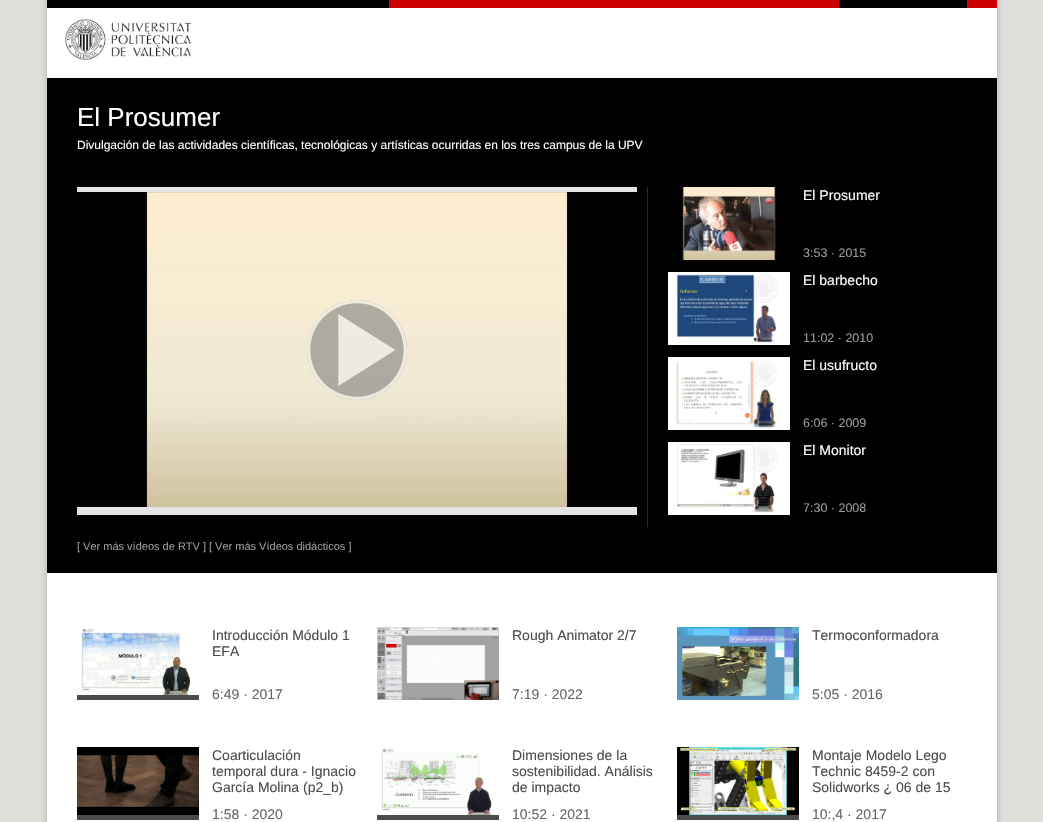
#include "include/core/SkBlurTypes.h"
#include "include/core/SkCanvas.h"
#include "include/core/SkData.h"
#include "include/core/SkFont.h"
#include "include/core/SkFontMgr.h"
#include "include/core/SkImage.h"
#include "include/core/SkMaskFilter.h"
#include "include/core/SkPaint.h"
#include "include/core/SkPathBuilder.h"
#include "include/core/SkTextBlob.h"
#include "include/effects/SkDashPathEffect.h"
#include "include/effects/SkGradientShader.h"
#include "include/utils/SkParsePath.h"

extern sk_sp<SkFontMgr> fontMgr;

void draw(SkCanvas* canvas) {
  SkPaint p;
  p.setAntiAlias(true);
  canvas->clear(SK_ColorWHITE);
  canvas->drawImageRect(SkImages::DeferredFromEncodedData(SkData::MakeFromFileName("images/1.png")), SkRect::MakeLTRB(0, 0, 1043, 822), SkSamplingOptions());
  p.setColor(SK_ColorWHITE);
  canvas->drawRect(SkRect::MakeLTRB(47, 8, 997, 822), p);
  p.setColor(SkColorSetRGB(204, 0, 0));
  canvas->drawRect(SkRect::MakeLTRB(389, 0, 997, 8), p);
  p.setColor(SK_ColorBLACK);
  canvas->drawRect(SkRect::MakeLTRB(47, 0, 389, 8), p);
  canvas->drawRect(SkRect::MakeLTRB(839, 0, 967, 8), p);
  canvas->drawImageRect(SkImages::DeferredFromEncodedData(SkData::MakeFromFileName("images/2.png")), SkRect::MakeLTRB(65, 19, 191, 60), SkSamplingOptions());
  canvas->drawRect(SkRect::MakeLTRB(47, 78, 997, 573), p);
  canvas->drawImageRect(SkImages::DeferredFromEncodedData(SkData::MakeFromFileName("images/3.png")), SkRect::MakeLTRB(77, 187, 637, 515), SkSamplingOptions());
  p.setColor(SkColorSetRGB(42, 42, 42));
  canvas->drawRect(SkRect::MakeLTRB(647, 187, 648, 527), p);
  canvas->drawImageRect(SkImages::DeferredFromEncodedData(SkData::MakeFromFileName("images/4.png")), SkRect::MakeLTRB(682, 187, 776, 260), SkSamplingOptions());
  canvas->drawImageRect(SkImages::DeferredFromEncodedData(SkData::MakeFromFileName("images/5.png")), SkRect::MakeLTRB(668, 272, 790, 345), SkSamplingOptions());
  canvas->drawImageRect(SkImages::DeferredFromEncodedData(SkData::MakeFromFileName("images/6.png")), SkRect::MakeLTRB(668, 357, 790, 430), SkSamplingOptions());
  canvas->drawImageRect(SkImages::DeferredFromEncodedData(SkData::MakeFromFileName("images/7.png")), SkRect::MakeLTRB(668, 442, 790, 515), SkSamplingOptions());
  p.setColor(SkColorSetRGB(75, 75, 75));
  canvas->drawRect(SkRect::MakeLTRB(77, 695, 199, 700), p);
  canvas->drawImageRect(SkImages::DeferredFromEncodedData(SkData::MakeFromFileName("images/8.png")), SkRect::MakeLTRB(77, 627, 199, 695), SkSamplingOptions());
  canvas->drawImageRect(SkImages::DeferredFromEncodedData(SkData::MakeFromFileName("images/9.png")), SkRect::MakeLTRB(377, 627, 499, 700), SkSamplingOptions());
  canvas->drawImageRect(SkImages::DeferredFromEncodedData(SkData::MakeFromFileName("images/10.png")), SkRect::MakeLTRB(677, 627, 799, 700), SkSamplingOptions());
  canvas->drawRect(SkRect::MakeLTRB(77, 815, 199, 820), p);
  canvas->drawImageRect(SkImages::DeferredFromEncodedData(SkData::MakeFromFileName("images/11.png")), SkRect::MakeLTRB(77, 747, 199, 815), SkSamplingOptions());
  canvas->drawRect(SkRect::MakeLTRB(377, 815, 499, 820), p);
  canvas->drawImageRect(SkImages::DeferredFromEncodedData(SkData::MakeFromFileName("images/12.png")), SkRect::MakeLTRB(377, 747, 499, 815), SkSamplingOptions());
  canvas->drawRect(SkRect::MakeLTRB(677, 815, 799, 820), p);
  canvas->drawImageRect(SkImages::DeferredFromEncodedData(SkData::MakeFromFileName("images/13.png")), SkRect::MakeLTRB(677, 747, 799, 815), SkSamplingOptions());
  SkFont font1(fontMgr->matchFamilyStyle("Liberation Sans", SkFontStyle::Normal()), 26);
  font1.setSubpixel(true);
  p.setColor(SK_ColorWHITE);
  canvas->drawString("El Prosumer", 77, 126, font1, p);
  SkFont font2(fontMgr->matchFamilyStyle("Liberation Sans", SkFontStyle::Normal()), 12);
  font2.setSubpixel(true);
  canvas->drawString("Divulgación de las actividades científicas, tecnológicas y artísticas ocurridas en los tres campus de la UPV", 77, 149, font2, p);
  SkFont font3(fontMgr->matchFamilyStyle("Liberation Sans", SkFontStyle::Normal()), 11);
  font3.setSubpixel(true);
  p.setColor(SkColorSetRGB(153, 153, 153));
  canvas->drawString("[ Ver más vídeos de RTV ]", 77, 550, font3, p);
  canvas->drawString("[ Ver más Vídeos didácticos ]", 209, 550, font3, p);
  SkFont font4(fontMgr->matchFamilyStyle("Liberation Sans", SkFontStyle::Normal()), 14);
  font4.setSubpixel(true);
  p.setColor(SK_ColorWHITE);
  canvas->drawString("El Prosumer", 803, 200, font4, p);
  SkFont font5(fontMgr->matchFamilyStyle("Liberation Sans", SkFontStyle::Normal()), 12.5f);
  font5.setSubpixel(true);
  p.setColor(SkColorSetRGB(153, 153, 153));
  canvas->drawString("3:53 · 2015", 803, 257, font5, p);
  p.setColor(SK_ColorWHITE);
  canvas->drawString("El barbecho", 803, 285, font4, p);
  p.setColor(SkColorSetRGB(153, 153, 153));
  canvas->drawString("11:02 · 2010", 803, 342, font5, p);
  p.setColor(SK_ColorWHITE);
  canvas->drawString("El usufructo", 803, 370, font4, p);
  p.setColor(SkColorSetRGB(153, 153, 153));
  canvas->drawString("6:06 · 2009", 803, 427, font5, p);
  p.setColor(SK_ColorWHITE);
  canvas->drawString("El Monitor", 803, 455, font4, p);
  p.setColor(SkColorSetRGB(153, 153, 153));
  canvas->drawString("7:30 · 2008", 803, 512, font5, p);
  p.setColor(SkColorSetRGB(75, 75, 75));
  canvas->drawString("Introducción Módulo 1", 212, 640, font4, p);
  canvas->drawString("EFA", 212, 656, font4, p);
  p.setColor(SkColorSetRGB(102, 102, 102));
  canvas->drawString("6:49 · 2017", 212, 699, font4, p);
  p.setColor(SkColorSetRGB(75, 75, 75));
  canvas->drawString("Rough Animator 2/7", 512, 640, font4, p);
  p.setColor(SkColorSetRGB(102, 102, 102));
  canvas->drawString("7:19 · 2022", 512, 699, font4, p);
  p.setColor(SkColorSetRGB(75, 75, 75));
  canvas->drawString("Termoconformadora", 812, 640, font4, p);
  p.setColor(SkColorSetRGB(102, 102, 102));
  canvas->drawString("5:05 · 2016", 812, 699, font4, p);
  p.setColor(SkColorSetRGB(75, 75, 75));
  canvas->drawString("Coarticulación", 212, 760, font4, p);
  canvas->drawString("temporal dura - Ignacio", 212, 776, font4, p);
  canvas->drawString("García Molina (p2_b)", 212, 792, font4, p);
  p.setColor(SkColorSetRGB(102, 102, 102));
  canvas->drawString("1:58 · 2020", 212, 819, font4, p);
  p.setColor(SkColorSetRGB(75, 75, 75));
  canvas->drawString("Dimensiones de la", 512, 760, font4, p);
  canvas->drawString("sostenibilidad. Análisis", 512, 776, font4, p);
  canvas->drawString("de impacto", 512, 792, font4, p);
  p.setColor(SkColorSetRGB(102, 102, 102));
  canvas->drawString("10:52 · 2021", 512, 819, font4, p);
  p.setColor(SkColorSetRGB(75, 75, 75));
  canvas->drawString("Montaje Modelo Lego", 812, 760, font4, p);
  canvas->drawString("Technic 8459-2 con", 812, 776, font4, p);
  canvas->drawString("Solidworks ¿ 06 de 15", 812, 792, font4, p);
  p.setColor(SkColorSetRGB(102, 102, 102));
  canvas->drawString("10:,4 · 2017", 812, 819, font4, p);
}
